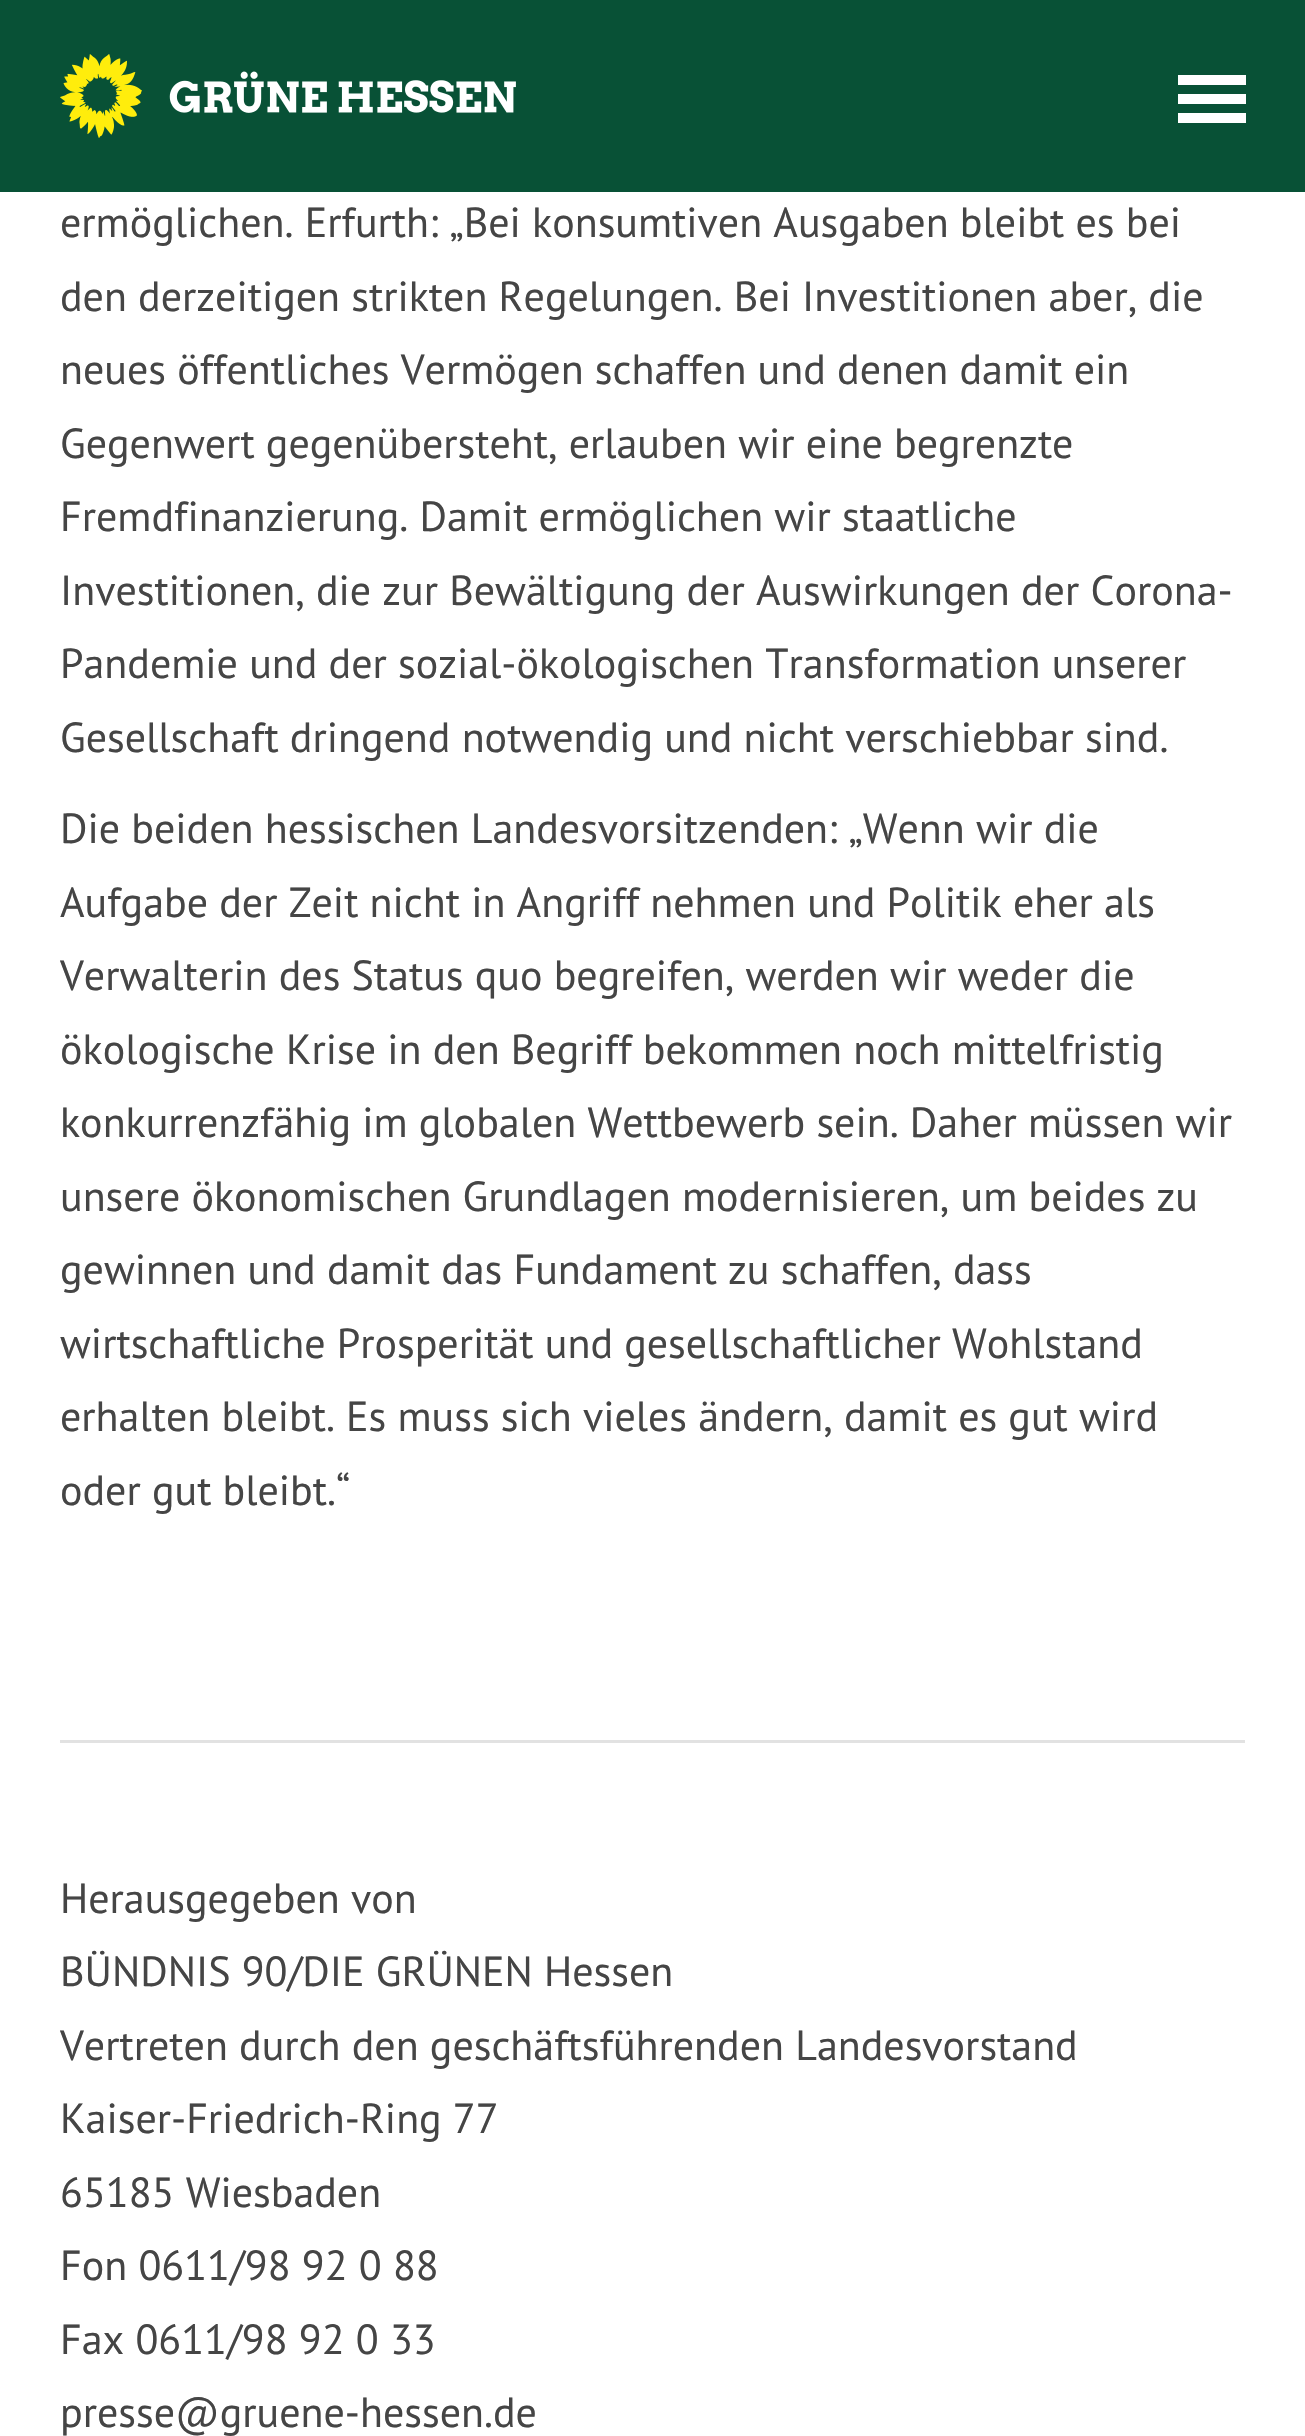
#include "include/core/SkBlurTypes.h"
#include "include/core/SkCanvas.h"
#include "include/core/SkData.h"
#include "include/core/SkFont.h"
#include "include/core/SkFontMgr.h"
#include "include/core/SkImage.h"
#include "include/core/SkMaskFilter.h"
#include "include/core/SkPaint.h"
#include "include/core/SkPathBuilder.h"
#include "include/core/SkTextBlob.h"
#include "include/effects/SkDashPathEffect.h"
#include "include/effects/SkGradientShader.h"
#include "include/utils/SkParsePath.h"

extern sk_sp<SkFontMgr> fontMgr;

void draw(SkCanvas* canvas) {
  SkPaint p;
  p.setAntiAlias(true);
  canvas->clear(SK_ColorWHITE);
  p.setColor(SkColorSetRGB(8, 81, 54));
  canvas->drawRect(SkRect::MakeLTRB(0, 0, 1305, 192), p);
  canvas->drawImageRect(SkImages::DeferredFromEncodedData(SkData::MakeFromFileName("images/1.png")), SkRect::MakeLTRB(60, 54, 516, 138), SkSamplingOptions());
  p.setColor(SK_ColorWHITE);
  canvas->drawPath(SkPathBuilder().moveTo(1178, 123).lineTo(1246, 123).lineTo(1246, 113).lineTo(1178, 113).close().moveTo(1178, 75).lineTo(1178, 85).lineTo(1246, 85).lineTo(1246, 75).close().moveTo(1178, 104).lineTo(1246, 104).lineTo(1246, 94).lineTo(1178, 94).close().detach(), p);
  p.setColor(SkColorSetRGB(226, 226, 226));
  canvas->drawRect(SkRect::MakeLTRB(60, 1740, 1245, 1743), p);
  SkFont font1(fontMgr->matchFamilyStyle("PT Sans", SkFontStyle::Normal()), 42);
  font1.setSubpixel(true);
  p.setColor(SkColorSetRGB(69, 69, 69));
  canvas->drawString("ermöglichen. Erfurth: „Bei konsumtiven Ausgaben bleibt es bei", 60, 237, font1, p);
  canvas->drawString("den derzeitigen strikten Regelungen. Bei Investitionen aber, die", 60, 311, font1, p);
  canvas->drawString("neues öffentliches Vermögen schaffen und denen damit ein", 60, 384, font1, p);
  canvas->drawString("Gegenwert gegenübersteht, erlauben wir eine begrenzte", 60, 458, font1, p);
  canvas->drawString("Fremdfinanzierung. Damit ermöglichen wir staatliche", 60, 531, font1, p);
  canvas->drawString("Investitionen, die zur Bewältigung der Auswirkungen der Corona-", 60, 605, font1, p);
  canvas->drawString("Pandemie und der sozial-ökologischen Transformation unserer", 60, 678, font1, p);
  canvas->drawString("Gesellschaft dringend notwendig und nicht verschiebbar sind.", 60, 752, font1, p);
  canvas->drawString("Die beiden hessischen Landesvorsitzenden: „Wenn wir die", 60, 843, font1, p);
  canvas->drawString("Aufgabe der Zeit nicht in Angriff nehmen und Politik eher als", 60, 917, font1, p);
  canvas->drawString("Verwalterin des Status quo begreifen, werden wir weder die", 60, 990, font1, p);
  canvas->drawString("ökologische Krise in den Begriff bekommen noch mittelfristig", 60, 1064, font1, p);
  canvas->drawString("konkurrenzfähig im globalen Wettbewerb sein. Daher müssen wir", 60, 1137, font1, p);
  canvas->drawString("unsere ökonomischen Grundlagen modernisieren, um beides zu", 60, 1211, font1, p);
  canvas->drawString("gewinnen und damit das Fundament zu schaffen, dass", 60, 1284, font1, p);
  canvas->drawString("wirtschaftliche Prosperität und gesellschaftlicher Wohlstand", 60, 1358, font1, p);
  canvas->drawString("erhalten bleibt. Es muss sich vieles ändern, damit es gut wird", 60, 1431, font1, p);
  canvas->drawString("oder gut bleibt.“", 60, 1505, font1, p);
  canvas->drawString("Herausgegeben von", 60, 1913, font1, p);
  canvas->drawString("BÜNDNIS 90/DIE GRÜNEN Hessen", 60, 1986, font1, p);
  canvas->drawString("Vertreten durch den geschäftsführenden Landesvorstand", 60, 2060, font1, p);
  canvas->drawString("Kaiser-Friedrich-Ring 77", 60, 2133, font1, p);
  canvas->drawString("65185 Wiesbaden", 60, 2207, font1, p);
  canvas->drawString("Fon 0611/98 92 0 88", 60, 2280, font1, p);
  canvas->drawString("Fax 0611/98 92 0 33", 60, 2354, font1, p);
  canvas->drawString("presse@gruene-hessen.de", 60, 2427, font1, p);
}
